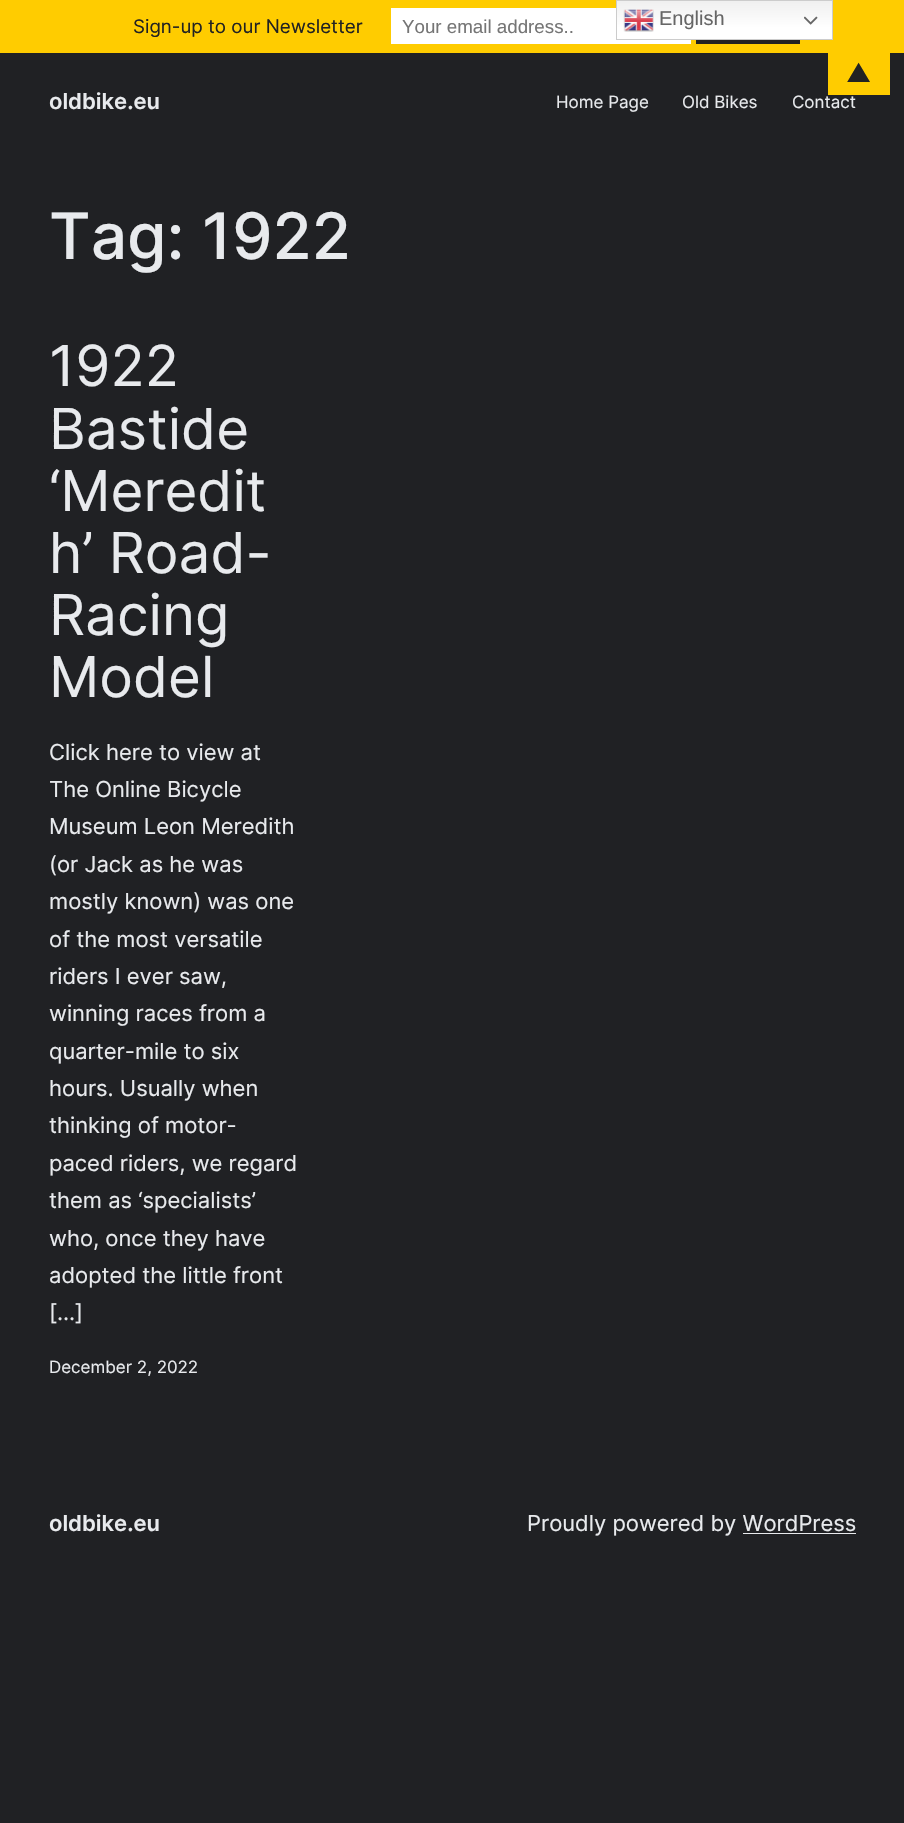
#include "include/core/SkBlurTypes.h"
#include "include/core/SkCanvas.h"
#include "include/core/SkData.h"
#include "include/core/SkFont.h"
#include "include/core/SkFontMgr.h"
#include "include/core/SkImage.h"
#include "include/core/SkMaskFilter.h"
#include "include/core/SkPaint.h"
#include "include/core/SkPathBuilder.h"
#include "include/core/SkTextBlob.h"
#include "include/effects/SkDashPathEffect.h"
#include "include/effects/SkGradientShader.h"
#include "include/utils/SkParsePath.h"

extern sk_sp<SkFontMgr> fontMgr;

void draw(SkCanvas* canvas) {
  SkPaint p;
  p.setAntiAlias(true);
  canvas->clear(SkColorSetRGB(32, 33, 36));
  p.setColor(SkColorSetRGB(255, 204, 0));
  canvas->drawRect(SkRect::MakeLTRB(0, 0, 904, 53), p);
  p.setColor(SK_ColorWHITE);
  canvas->drawRect(SkRect::MakeLTRB(391, 8, 691, 44), p);
  {
    const SkColor colors[] = {SkColorSetRGB(239, 239, 239), SK_ColorWHITE};
    const float stops[] = {0, 0.7f};
    const SkPoint ends[] = {{724, 0}, {724, 40}};
    p.setShader(SkGradientShader::MakeLinear(ends, colors, stops, 2, SkTileMode::kClamp));
    p.setAlpha(255);
  }
  canvas->drawRect(SkRect::MakeLTRB(617, 1, 832, 39), p);
  p.setStyle(SkPaint::kStroke_Style);
  p.setStrokeWidth(1);
  p.setShader(nullptr);
  p.setColor(SkColorSetRGB(204, 204, 204));
  canvas->drawRect(SkRect::MakeLTRB(616.5f, 0.5f, 832.5f, 39.5f), p);
  canvas->drawImageRect(SkImages::DeferredFromEncodedData(SkData::MakeFromFileName("images/1.png")), SkRect::MakeLTRB(623, 9, 654, 32), SkSamplingOptions());
  canvas->drawImageRect(SkImages::DeferredFromEncodedData(SkData::MakeFromFileName("images/2.png")), SkRect::MakeLTRB(804, 16, 818, 25), SkSamplingOptions());
  p.setStyle(SkPaint::kFill_Style);
  p.setColor(SkColorSetRGB(34, 34, 34));
  canvas->drawRect(SkRect::MakeLTRB(696, 40, 800, 44), p);
  p.setColor(SkColorSetRGB(255, 204, 0));
  canvas->drawRect(SkRect::MakeLTRB(828, 53, 890, 95), p);
  p.setColor(SkColorSetRGB(232, 234, 237));
  canvas->drawRect(SkRect::MakeLTRB(743, 1533, 856, 1534), p);
  SkFont font1(fontMgr->matchFamilyStyle("Liberation Sans", SkFontStyle::Normal()), 20);
  font1.setSubpixel(true);
  p.setColor(SkColorSetRGB(102, 102, 102));
  canvas->drawString("English", 659, 25, font1, p);
  SkFont font2(fontMgr->matchFamilyStyle("Inter", SkFontStyle::Normal()), 18.75f);
  font2.setSubpixel(true);
  p.setColor(SkColorSetRGB(34, 34, 34));
  canvas->drawString("Sign-up to our Newsletter", 133, 33, font2, p);
  SkFont font3(fontMgr->matchFamilyStyle("Liberation Sans", SkFontStyle::Normal()), 18.75f);
  font3.setSubpixel(true);
  p.setColor(SkColorSetRGB(117, 117, 117));
  canvas->drawString("Your email address..", 402, 33, font3, p);
  SkFont font4(fontMgr->matchFamilyStyle("Inter", SkFontStyle::Normal()), 25);
  font4.setSubpixel(true);
  p.setColor(SkColorSetRGB(34, 34, 34));
  canvas->drawString("▲", 846, 82, font4, p);
  SkFont font5(fontMgr->matchFamilyStyle("Inter", SkFontStyle(600, SkFontStyle::kNormal_Width, SkFontStyle::kUpright_Slant)), 22);
  font5.setSubpixel(true);
  p.setColor(SkColorSetRGB(232, 234, 237));
  canvas->drawString("oldbike.eu", 49, 109, font5, p);
  SkFont font6(fontMgr->matchFamilyStyle("Inter", SkFontStyle::Normal()), 17);
  font6.setSubpixel(true);
  canvas->drawString("Home Page", 556, 108, font6, p);
  canvas->drawString("Old Bikes", 682, 108, font6, p);
  canvas->drawString("Contact", 792, 108, font6, p);
  SkFont font7(fontMgr->matchFamilyStyle("Inter", SkFontStyle(500, SkFontStyle::kNormal_Width, SkFontStyle::kUpright_Slant)), 64);
  font7.setSubpixel(true);
  canvas->drawString("Tag: 1922", 49, 259, font7, p);
  SkFont font8(fontMgr->matchFamilyStyle("Inter", SkFontStyle::Normal()), 56.5f);
  font8.setSubpixel(true);
  canvas->drawString("1922", 49, 386, font8, p);
  canvas->drawString("Bastide", 49, 449, font8, p);
  canvas->drawString("‘Meredit", 49, 511, font8, p);
  canvas->drawString("h’ Road-", 49, 573, font8, p);
  canvas->drawString("Racing", 49, 635, font8, p);
  canvas->drawString("Model", 49, 697, font8, p);
  SkFont font9(fontMgr->matchFamilyStyle("Inter", SkFontStyle::Normal()), 22);
  font9.setSubpixel(true);
  canvas->drawString("Click here to view at", 49, 760, font9, p);
  canvas->drawString("The Online Bicycle", 49, 797, font9, p);
  canvas->drawString("Museum Leon Meredith", 49, 834, font9, p);
  canvas->drawString("(or Jack as he was", 49, 872, font9, p);
  canvas->drawString("mostly known) was one", 49, 909, font9, p);
  canvas->drawString("of the most versatile", 49, 947, font9, p);
  canvas->drawString("riders I ever saw,", 49, 984, font9, p);
  canvas->drawString("winning races from a", 49, 1021, font9, p);
  canvas->drawString("quarter-mile to six", 49, 1059, font9, p);
  canvas->drawString("hours. Usually when", 49, 1096, font9, p);
  canvas->drawString("thinking of motor-", 49, 1133, font9, p);
  canvas->drawString("paced riders, we regard", 49, 1171, font9, p);
  canvas->drawString("them as ‘specialists’", 49, 1208, font9, p);
  canvas->drawString("who, once they have", 49, 1246, font9, p);
  canvas->drawString("adopted the little front", 49, 1283, font9, p);
  canvas->drawString("[…]", 49, 1320, font9, p);
  canvas->drawString("December 2, 2022", 49, 1373, font6, p);
  canvas->drawString("oldbike.eu", 49, 1531, font5, p);
  canvas->drawString("Proudly powered by WordPress", 527, 1531, font9, p);
}
